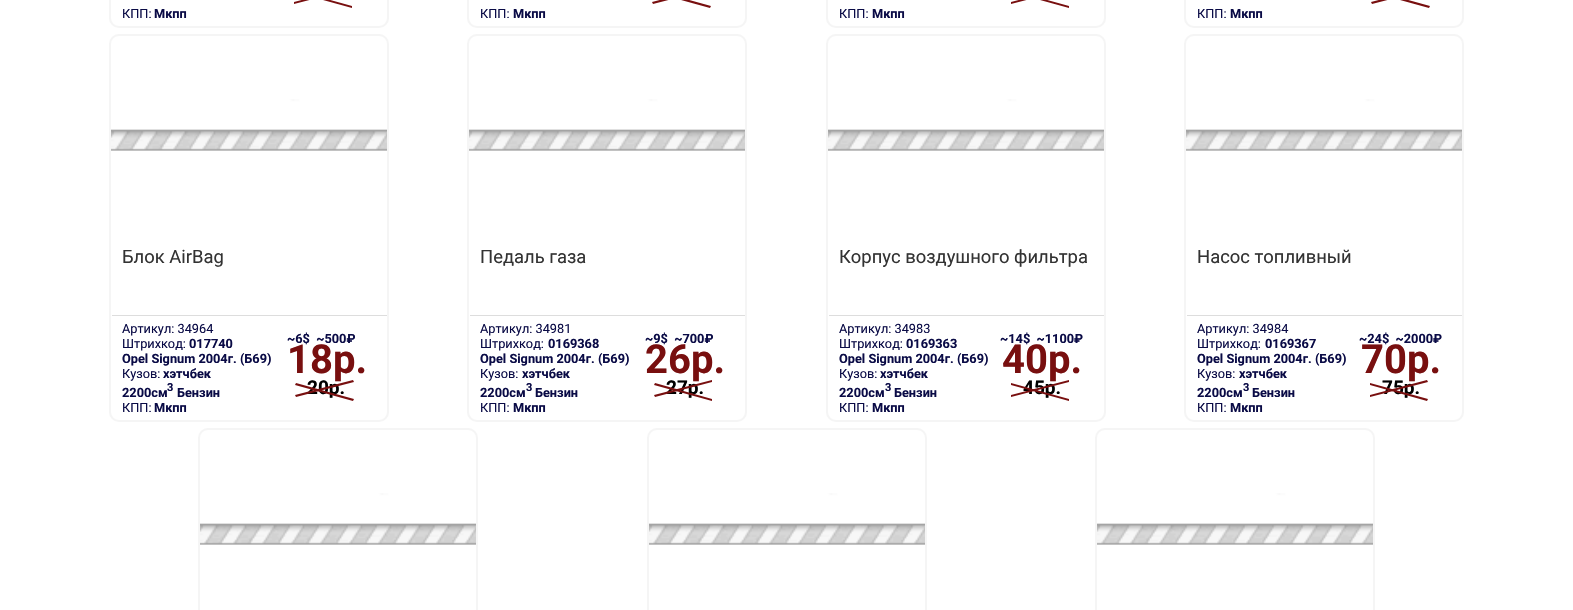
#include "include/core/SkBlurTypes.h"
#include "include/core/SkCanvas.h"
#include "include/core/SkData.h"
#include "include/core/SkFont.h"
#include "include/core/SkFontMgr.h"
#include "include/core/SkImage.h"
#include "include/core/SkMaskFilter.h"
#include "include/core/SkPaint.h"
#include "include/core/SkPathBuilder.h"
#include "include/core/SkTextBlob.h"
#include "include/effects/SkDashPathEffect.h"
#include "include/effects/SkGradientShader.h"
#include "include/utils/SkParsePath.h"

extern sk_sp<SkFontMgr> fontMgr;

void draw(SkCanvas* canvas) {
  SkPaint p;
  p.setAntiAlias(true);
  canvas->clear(SK_ColorWHITE);
  p.setStyle(SkPaint::kStroke_Style);
  p.setStrokeWidth(2);
  p.setColor(SkColorSetRGB(245, 245, 245));
  canvas->drawRoundRect(SkRect::MakeLTRB(110, -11, 388, 27), 9, 9, p);
  p.setStyle(SkPaint::kFill_Style);
  p.setColor(SkColorSetRGB(120, 15, 15));
  canvas->drawPath(SkPathBuilder().moveTo(294, 2).lineTo(352, -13).lineTo(352, -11).lineTo(294, 4).close().moveTo(294, -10).lineTo(352, 6).lineTo(352, 8).lineTo(294, -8).close().detach(), p);
  p.setStyle(SkPaint::kStroke_Style);
  p.setColor(SkColorSetRGB(245, 245, 245));
  canvas->drawRoundRect(SkRect::MakeLTRB(468, -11, 746, 27), 9, 9, p);
  p.setStyle(SkPaint::kFill_Style);
  p.setColor(SkColorSetRGB(120, 15, 15));
  canvas->drawPath(SkPathBuilder().moveTo(652, 2).lineTo(710, -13).lineTo(711, -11).lineTo(653, 4).close().moveTo(653, -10).lineTo(711, 6).lineTo(710, 8).lineTo(652, -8).close().detach(), p);
  p.setStyle(SkPaint::kStroke_Style);
  p.setColor(SkColorSetRGB(245, 245, 245));
  canvas->drawRoundRect(SkRect::MakeLTRB(827, -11, 1105, 27), 9, 9, p);
  p.setStyle(SkPaint::kFill_Style);
  p.setColor(SkColorSetRGB(120, 15, 15));
  canvas->drawPath(SkPathBuilder().moveTo(1011, 2).lineTo(1069, -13).lineTo(1069, -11).lineTo(1011, 4).close().moveTo(1011, -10).lineTo(1069, 6).lineTo(1069, 8).lineTo(1011, -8).close().detach(), p);
  p.setStyle(SkPaint::kStroke_Style);
  p.setColor(SkColorSetRGB(245, 245, 245));
  canvas->drawRoundRect(SkRect::MakeLTRB(1185, -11, 1463, 27), 9, 9, p);
  p.setStyle(SkPaint::kFill_Style);
  p.setColor(SkColorSetRGB(120, 15, 15));
  canvas->drawPath(SkPathBuilder().moveTo(1371, 2).lineTo(1429, -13).lineTo(1430, -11).lineTo(1372, 4).close().moveTo(1372, -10).lineTo(1430, 6).lineTo(1429, 8).lineTo(1371, -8).close().detach(), p);
  p.setStyle(SkPaint::kStroke_Style);
  p.setColor(SkColorSetRGB(245, 245, 245));
  canvas->drawRoundRect(SkRect::MakeLTRB(110, 35, 388, 421), 9, 9, p);
  canvas->drawImageRect(SkImages::DeferredFromEncodedData(SkData::MakeFromFileName("images/1.png")), SkRect::MakeLTRB(111, 99, 387, 151), SkSamplingOptions());
  p.setStyle(SkPaint::kFill_Style);
  p.setColor(SkColorSetRGB(221, 221, 221));
  canvas->drawRect(SkRect::MakeLTRB(112, 315, 387, 316), p);
  p.setStyle(SkPaint::kStroke_Style);
  p.setColor(SkColorSetRGB(245, 245, 245));
  canvas->drawRoundRect(SkRect::MakeLTRB(468, 35, 746, 421), 9, 9, p);
  canvas->drawImageRect(SkImages::DeferredFromEncodedData(SkData::MakeFromFileName("images/1.png")), SkRect::MakeLTRB(469, 99, 745, 151), SkSamplingOptions());
  p.setStyle(SkPaint::kFill_Style);
  p.setColor(SkColorSetRGB(221, 221, 221));
  canvas->drawRect(SkRect::MakeLTRB(470, 315, 745, 316), p);
  p.setStyle(SkPaint::kStroke_Style);
  p.setColor(SkColorSetRGB(245, 245, 245));
  canvas->drawRoundRect(SkRect::MakeLTRB(827, 35, 1105, 421), 9, 9, p);
  canvas->drawImageRect(SkImages::DeferredFromEncodedData(SkData::MakeFromFileName("images/1.png")), SkRect::MakeLTRB(828, 99, 1104, 151), SkSamplingOptions());
  p.setStyle(SkPaint::kFill_Style);
  p.setColor(SkColorSetRGB(221, 221, 221));
  canvas->drawRect(SkRect::MakeLTRB(829, 315, 1104, 316), p);
  p.setStyle(SkPaint::kStroke_Style);
  p.setColor(SkColorSetRGB(245, 245, 245));
  canvas->drawRoundRect(SkRect::MakeLTRB(1185, 35, 1463, 421), 9, 9, p);
  canvas->drawImageRect(SkImages::DeferredFromEncodedData(SkData::MakeFromFileName("images/2.png")), SkRect::MakeLTRB(1186, 99, 1462, 151), SkSamplingOptions());
  p.setStyle(SkPaint::kFill_Style);
  p.setColor(SkColorSetRGB(221, 221, 221));
  canvas->drawRect(SkRect::MakeLTRB(1187, 315, 1462, 316), p);
  p.setStyle(SkPaint::kStroke_Style);
  p.setColor(SkColorSetRGB(245, 245, 245));
  canvas->drawRoundRect(SkRect::MakeLTRB(199, 429, 477, 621), 9, 9, p);
  canvas->drawImageRect(SkImages::DeferredFromEncodedData(SkData::MakeFromFileName("images/1.png")), SkRect::MakeLTRB(200, 493, 476, 545), SkSamplingOptions());
  canvas->drawRoundRect(SkRect::MakeLTRB(648, 429, 926, 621), 9, 9, p);
  canvas->drawImageRect(SkImages::DeferredFromEncodedData(SkData::MakeFromFileName("images/1.png")), SkRect::MakeLTRB(649, 493, 925, 545), SkSamplingOptions());
  canvas->drawRoundRect(SkRect::MakeLTRB(1096, 429, 1374, 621), 9, 9, p);
  canvas->drawImageRect(SkImages::DeferredFromEncodedData(SkData::MakeFromFileName("images/2.png")), SkRect::MakeLTRB(1097, 493, 1373, 545), SkSamplingOptions());
  SkFont font1(fontMgr->matchFamilyStyle("Roboto", SkFontStyle::Normal()), 12.75f);
  font1.setSubpixel(true);
  p.setStyle(SkPaint::kFill_Style);
  p.setColor(SkColorSetRGB(10, 11, 70));
  canvas->drawString("КПП:", 122, 18, font1, p);
  SkFont font2(fontMgr->matchFamilyStyle("Roboto", SkFontStyle::Bold()), 12.75f);
  font2.setSubpixel(true);
  canvas->drawString("Мкпп", 154, 18, font2, p);
  canvas->drawString("КПП:", 480, 18, font1, p);
  canvas->drawString("Мкпп", 513, 18, font2, p);
  canvas->drawString("КПП:", 839, 18, font1, p);
  canvas->drawString("Мкпп", 872, 18, font2, p);
  canvas->drawString("КПП:", 1197, 18, font1, p);
  canvas->drawString("Мкпп", 1230, 18, font2, p);
  SkFont font3(fontMgr->matchFamilyStyle("Roboto", SkFontStyle::Normal()), 18.4f);
  font3.setSubpixel(true);
  p.setColor(SkColorSetRGB(51, 51, 51));
  canvas->drawString("Блок AirBag", 122, 263, font3, p);
  p.setColor(SkColorSetRGB(10, 11, 70));
  canvas->drawString("Артикул: 34964", 122, 333, font1, p);
  canvas->drawString("Штрихкод:", 122, 348, font1, p);
  canvas->drawString("017740", 189, 348, font2, p);
  canvas->drawString("Opel Signum 2004г. (Б69)", 122, 363, font2, p);
  canvas->drawString("Кузов:", 122, 378, font1, p);
  canvas->drawString("хэтчбек", 163, 378, font2, p);
  canvas->drawString("2200см", 122, 397, font2, p);
  SkFont font4(fontMgr->matchFamilyStyle("Roboto", SkFontStyle::Bold()), 11);
  font4.setSubpixel(true);
  canvas->drawString("3", 167, 391, font4, p);
  canvas->drawString("Бензин", 177, 397, font2, p);
  canvas->drawString("КПП:", 122, 412, font1, p);
  canvas->drawString("Мкпп", 154, 412, font2, p);
  canvas->drawString("~6$  ~500₽", 287, 343, font2, p);
  SkFont font5(fontMgr->matchFamilyStyle("Roboto", SkFontStyle::Bold()), 40);
  font5.setSubpixel(true);
  p.setColor(SkColorSetRGB(120, 15, 15));
  canvas->drawString("18р.", 287, 373, font5, p);
  SkFont font6(fontMgr->matchFamilyStyle("Roboto", SkFontStyle::Bold()), 19);
  font6.setSubpixel(true);
  p.setColor(SK_ColorBLACK);
  canvas->drawString("20р.", 307, 394, font6, p);
  p.setColor(SkColorSetRGB(120, 15, 15));
  canvas->drawPath(SkPathBuilder().moveTo(295, 395).lineTo(353, 380).lineTo(354, 382).lineTo(296, 397).close().detach(), p);
  canvas->drawPath(SkPathBuilder().moveTo(296, 383).lineTo(354, 399).lineTo(353, 401).lineTo(295, 385).close().detach(), p);
  p.setColor(SkColorSetRGB(51, 51, 51));
  canvas->drawString("Педаль газа", 480, 263, font3, p);
  p.setColor(SkColorSetRGB(10, 11, 70));
  canvas->drawString("Артикул: 34981", 480, 333, font1, p);
  canvas->drawString("Штрихкод:", 480, 348, font1, p);
  canvas->drawString("0169368", 548, 348, font2, p);
  canvas->drawString("Opel Signum 2004г. (Б69)", 480, 363, font2, p);
  canvas->drawString("Кузов:", 480, 378, font1, p);
  canvas->drawString("хэтчбек", 522, 378, font2, p);
  canvas->drawString("2200см", 480, 397, font2, p);
  canvas->drawString("3", 526, 391, font4, p);
  canvas->drawString("Бензин", 535, 397, font2, p);
  canvas->drawString("КПП:", 480, 412, font1, p);
  canvas->drawString("Мкпп", 513, 412, font2, p);
  canvas->drawString("~9$  ~700₽", 645, 343, font2, p);
  p.setColor(SkColorSetRGB(120, 15, 15));
  canvas->drawString("26р.", 645, 373, font5, p);
  p.setColor(SK_ColorBLACK);
  canvas->drawString("27р.", 666, 394, font6, p);
  p.setColor(SkColorSetRGB(120, 15, 15));
  canvas->drawPath(SkPathBuilder().moveTo(654, 395).lineTo(712, 380).lineTo(712, 382).lineTo(655, 397).close().detach(), p);
  canvas->drawPath(SkPathBuilder().moveTo(655, 383).lineTo(712, 399).lineTo(712, 401).lineTo(654, 385).close().detach(), p);
  p.setColor(SkColorSetRGB(51, 51, 51));
  canvas->drawString("Корпус воздушного фильтра", 839, 263, font3, p);
  p.setColor(SkColorSetRGB(10, 11, 70));
  canvas->drawString("Артикул: 34983", 839, 333, font1, p);
  canvas->drawString("Штрихкод:", 839, 348, font1, p);
  canvas->drawString("0169363", 906, 348, font2, p);
  canvas->drawString("Opel Signum 2004г. (Б69)", 839, 363, font2, p);
  canvas->drawString("Кузов:", 839, 378, font1, p);
  canvas->drawString("хэтчбек", 880, 378, font2, p);
  canvas->drawString("2200см", 839, 397, font2, p);
  canvas->drawString("3", 885, 391, font4, p);
  canvas->drawString("Бензин", 894, 397, font2, p);
  canvas->drawString("КПП:", 839, 412, font1, p);
  canvas->drawString("Мкпп", 872, 412, font2, p);
  canvas->drawString("~14$  ~1100₽", 1000, 343, font2, p);
  p.setColor(SkColorSetRGB(120, 15, 15));
  canvas->drawString("40р.", 1002, 373, font5, p);
  p.setColor(SK_ColorBLACK);
  canvas->drawString("45р.", 1023, 394, font6, p);
  p.setColor(SkColorSetRGB(120, 15, 15));
  canvas->drawPath(SkPathBuilder().moveTo(1011, 395).lineTo(1069, 380).lineTo(1069, 382).lineTo(1011, 397).close().detach(), p);
  canvas->drawPath(SkPathBuilder().moveTo(1011, 383).lineTo(1069, 399).lineTo(1069, 401).lineTo(1011, 385).close().detach(), p);
  p.setColor(SkColorSetRGB(51, 51, 51));
  canvas->drawString("Насос топливный", 1197, 263, font3, p);
  p.setColor(SkColorSetRGB(10, 11, 70));
  canvas->drawString("Артикул: 34984", 1197, 333, font1, p);
  canvas->drawString("Штрихкод:", 1197, 348, font1, p);
  canvas->drawString("0169367", 1265, 348, font2, p);
  canvas->drawString("Opel Signum 2004г. (Б69)", 1197, 363, font2, p);
  canvas->drawString("Кузов:", 1197, 378, font1, p);
  canvas->drawString("хэтчбек", 1239, 378, font2, p);
  canvas->drawString("2200см", 1197, 397, font2, p);
  canvas->drawString("3", 1243, 391, font4, p);
  canvas->drawString("Бензин", 1252, 397, font2, p);
  canvas->drawString("КПП:", 1197, 412, font1, p);
  canvas->drawString("Мкпп", 1230, 412, font2, p);
  canvas->drawString("~24$  ~2000₽", 1359, 343, font2, p);
  p.setColor(SkColorSetRGB(120, 15, 15));
  canvas->drawString("70р.", 1361, 373, font5, p);
  p.setColor(SK_ColorBLACK);
  canvas->drawString("75р.", 1382, 394, font6, p);
  p.setColor(SkColorSetRGB(120, 15, 15));
  canvas->drawPath(SkPathBuilder().moveTo(1370, 395).lineTo(1427, 380).lineTo(1428, 382).lineTo(1370, 397).close().detach(), p);
  canvas->drawPath(SkPathBuilder().moveTo(1370, 383).lineTo(1428, 399).lineTo(1427, 401).lineTo(1370, 385).close().detach(), p);
}
